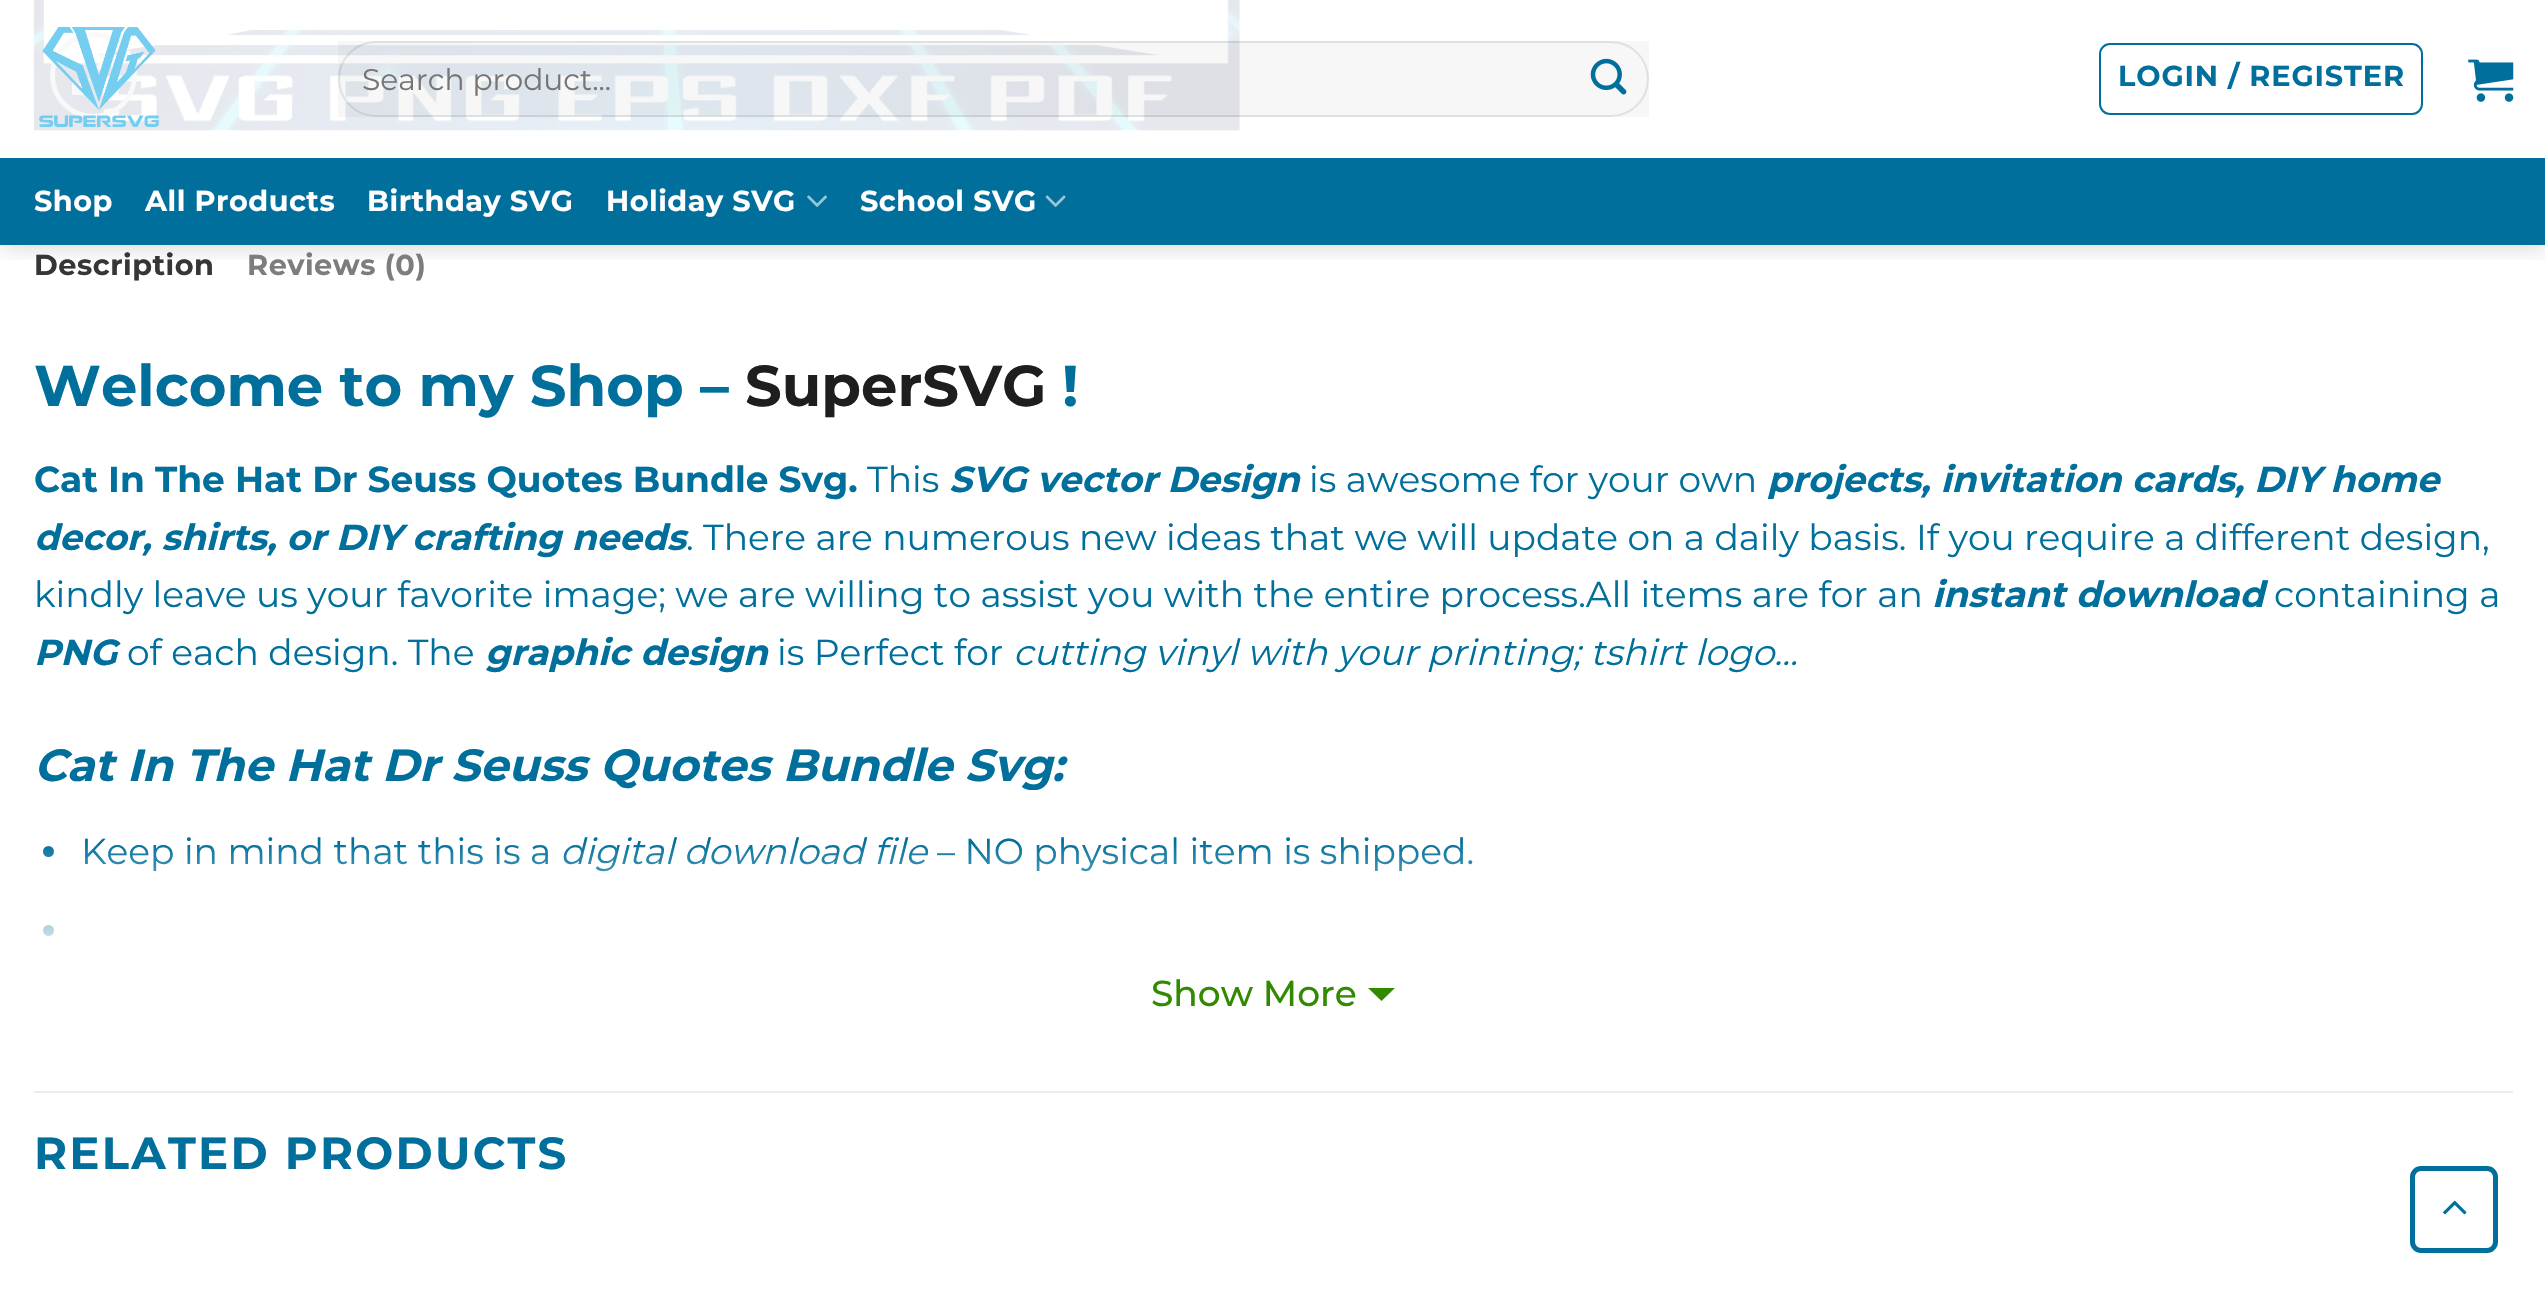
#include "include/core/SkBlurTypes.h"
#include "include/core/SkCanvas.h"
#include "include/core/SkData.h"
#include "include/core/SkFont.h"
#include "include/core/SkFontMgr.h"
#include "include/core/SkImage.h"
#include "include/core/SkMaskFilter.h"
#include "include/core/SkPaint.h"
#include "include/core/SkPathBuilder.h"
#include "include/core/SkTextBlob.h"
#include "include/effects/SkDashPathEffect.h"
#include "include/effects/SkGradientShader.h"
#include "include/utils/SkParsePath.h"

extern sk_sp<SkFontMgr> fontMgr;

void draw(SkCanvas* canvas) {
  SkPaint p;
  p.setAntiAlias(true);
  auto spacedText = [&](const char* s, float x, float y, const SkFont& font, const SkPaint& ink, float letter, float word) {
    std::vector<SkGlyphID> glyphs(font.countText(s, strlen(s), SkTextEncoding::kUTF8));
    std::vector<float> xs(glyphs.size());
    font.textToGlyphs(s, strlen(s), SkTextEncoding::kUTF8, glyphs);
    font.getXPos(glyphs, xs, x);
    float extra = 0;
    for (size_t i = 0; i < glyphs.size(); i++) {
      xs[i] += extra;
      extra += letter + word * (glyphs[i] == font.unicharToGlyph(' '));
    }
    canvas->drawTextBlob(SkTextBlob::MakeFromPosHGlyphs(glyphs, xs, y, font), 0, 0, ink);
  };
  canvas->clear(SK_ColorWHITE);
  canvas->drawImageRect(SkImages::DeferredFromEncodedData(SkData::MakeFromFileName("images/6.png")), SkRect::MakeLTRB(33, 0, 1240, 131), SkSamplingOptions());
  p.setStyle(SkPaint::kStroke_Style);
  p.setStrokeWidth(5);
  p.setColor(SkColorSetRGB(249, 249, 249));
  canvas->drawCircle(93.5f, 75.5f, 41, p);
  p.setStyle(SkPaint::kFill_Style);
  canvas->drawPath(SkPathBuilder().moveTo(114, 53).lineTo(114, 70).lineTo(107, 63).lineTo(99, 71).lineTo(96, 67).lineTo(103, 60).lineTo(97, 53).close().moveTo(90, 80).lineTo(82, 88).lineTo(89, 95).lineTo(72, 95).lineTo(72, 78).lineTo(79, 84).lineTo(86, 77).close().detach(), p);
  canvas->save();
  canvas->clipRect(SkRect::MakeLTRB(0, 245, 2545, 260));
  p.setColor(SkColorSetARGB(38, 0, 0, 0));
  p.setMaskFilter(SkMaskFilter::MakeBlur(kNormal_SkBlurStyle, 11));
  canvas->drawRect(SkRect::MakeLTRB(2, 2, 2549, 248), p);
  p.setMaskFilter(nullptr);
  canvas->restore();
  canvas->drawImageRect(SkImages::DeferredFromEncodedData(SkData::MakeFromFileName("images/1.png")), SkRect::MakeLTRB(39, 26, 159, 128), SkSamplingOptions());
  p.setColor(SkColorSetARGB(8, 0, 0, 0));
  canvas->drawRect(SkRect::MakeLTRB(338, 41, 1649, 117), p);
  p.setStyle(SkPaint::kStroke_Style);
  p.setStrokeWidth(2);
  p.setColor(SkColorSetARGB(23, 0, 0, 0));
  canvas->drawRoundRect(SkRect::MakeLTRB(339, 42, 1648, 116), 37, 37, p);
  canvas->drawImageRect(SkImages::DeferredFromEncodedData(SkData::MakeFromFileName("images/2.png")), SkRect::MakeLTRB(1590, 58, 1627, 95), SkSamplingOptions());
  p.setColor(SkColorSetRGB(0, 111, 155));
  canvas->drawRoundRect(SkRect::MakeLTRB(2100, 44, 2422, 114), 10, 10, p);
  canvas->drawImageRect(SkImages::DeferredFromEncodedData(SkData::MakeFromFileName("images/3.png")), SkRect::MakeLTRB(2468, 59, 2514, 102), SkSamplingOptions());
  p.setStyle(SkPaint::kFill_Style);
  canvas->drawRect(SkRect::MakeLTRB(0, 158, 2545, 245), p);
  canvas->drawImageRect(SkImages::DeferredFromEncodedData(SkData::MakeFromFileName("images/4.png")), SkRect::MakeLTRB(807, 195, 827, 207), SkSamplingOptions());
  canvas->drawImageRect(SkImages::DeferredFromEncodedData(SkData::MakeFromFileName("images/5.png")), SkRect::MakeLTRB(1045, 195, 1066, 207), SkSamplingOptions());
  canvas->drawCircle(48.5f, 851.5f, 5.5f, p);
  canvas->drawCircle(48.5f, 930.5f, 5.5f, p);
  p.setColor(SkColorSetRGB(49, 138, 0));
  canvas->drawPath(SkPathBuilder().moveTo(1368, 988).lineTo(1395, 988).lineTo(1381.5f, 1001).close().detach(), p);
  p.setColor(SkColorSetRGB(236, 236, 236));
  canvas->drawRect(SkRect::MakeLTRB(34, 1091, 2513, 1093), p);
  p.setStyle(SkPaint::kStroke_Style);
  p.setStrokeWidth(5);
  p.setColor(SkColorSetRGB(0, 111, 155));
  canvas->drawRoundRect(SkRect::MakeLTRB(2412.5f, 1168.5f, 2495.5f, 1250.5f), 8.5f, 8.5f, p);
  canvas->drawImageRect(SkImages::DeferredFromEncodedData(SkData::MakeFromFileName("images/7.png")), SkRect::MakeLTRB(2443, 1200, 2467, 1215), SkSamplingOptions());
  SkFont font1(fontMgr->matchFamilyStyle("Montserrat", SkFontStyle::Normal()), 29.75f);
  font1.setSubpixel(true);
  p.setStyle(SkPaint::kFill_Style);
  p.setColor(SkColorSetRGB(117, 117, 117));
  canvas->drawString("Search product...", 362, 90, font1, p);
  SkFont font2(fontMgr->matchFamilyStyle("Montserrat", SkFontStyle::Bold()), 28.75f);
  font2.setSubpixel(true);
  p.setColor(SkColorSetRGB(0, 111, 155));
  spacedText("LOGIN / REGISTER", 2118, 86, font2, p, 0.9f, 0);
  p.setColor(SK_ColorWHITE);
  spacedText("Shop", 34, 211, font2, p, 0.5f, 0);
  spacedText("All Products", 145, 211, font2, p, 0.5f, 0);
  spacedText("Birthday SVG", 367, 211, font2, p, 0.5f, 0);
  spacedText("Holiday SVG", 606, 211, font2, p, 0.5f, 0);
  spacedText("School SVG", 860, 211, font2, p, 0.5f, 0);
  p.setColor(SkColorSetRGB(54, 54, 54));
  spacedText("Description", 34, 275, font2, p, 0.5f, 0);
  p.setColor(SkColorSetRGB(125, 125, 125));
  spacedText("Reviews (0)", 247, 275, font2, p, 0.5f, 0);
  SkFont font3(fontMgr->matchFamilyStyle("Montserrat", SkFontStyle::Bold()), 57.6f);
  font3.setSubpixel(true);
  p.setColor(SkColorSetRGB(0, 111, 155));
  canvas->drawString("Welcome to my Shop –", 34, 406, font3, p);
  p.setColor(SkColorSetRGB(30, 30, 30));
  canvas->drawString("SuperSVG", 745, 406, font3, p);
  p.setColor(SkColorSetRGB(0, 111, 155));
  canvas->drawString("!", 1062, 406, font3, p);
  SkFont font4(fontMgr->matchFamilyStyle("Montserrat", SkFontStyle::Bold()), 36);
  font4.setSubpixel(true);
  canvas->drawString("Cat In The Hat Dr Seuss Quotes Bundle Svg.", 34, 492, font4, p);
  SkFont font5(fontMgr->matchFamilyStyle("Montserrat", SkFontStyle::Normal()), 36);
  font5.setSubpixel(true);
  canvas->drawString("This", 867, 492, font5, p);
  SkFont font6(fontMgr->matchFamilyStyle("Montserrat", SkFontStyle::BoldItalic()), 36);
  font6.setSubpixel(true);
  canvas->drawString("SVG vector Design", 949, 492, font6, p);
  canvas->drawString("is awesome for your own", 1309, 492, font5, p);
  canvas->drawString("projects, invitation cards, DIY home", 1767, 492, font6, p);
  canvas->drawString("decor, shirts, or DIY crafting needs", 34, 550, font6, p);
  canvas->drawString(". There are numerous new ideas that we will update on a daily basis. If you require a different design,", 686, 550, font5, p);
  canvas->drawString("kindly leave us your favorite image; we are willing to assist you with the entire process.All items are for an", 34, 607, font5, p);
  canvas->drawString("instant download", 1932, 607, font6, p);
  canvas->drawString("containing a", 2274, 607, font5, p);
  canvas->drawString("PNG", 34, 665, font6, p);
  canvas->drawString("of each design. The", 127, 665, font5, p);
  canvas->drawString("graphic design", 485, 665, font6, p);
  canvas->drawString("is Perfect for", 777, 665, font5, p);
  SkFont font7(fontMgr->matchFamilyStyle("Montserrat", SkFontStyle::Italic()), 36);
  font7.setSubpixel(true);
  canvas->drawString("cutting vinyl with your printing; tshirt logo…", 1013, 665, font7, p);
  SkFont font8(fontMgr->matchFamilyStyle("Montserrat", SkFontStyle::BoldItalic()), 45);
  font8.setSubpixel(true);
  canvas->drawString("Cat In The Hat Dr Seuss Quotes Bundle Svg:", 34, 781, font8, p);
  canvas->drawString("Keep in mind that this is a", 81, 864, font5, p);
  canvas->drawString("digital download file", 560, 864, font7, p);
  canvas->drawString("– NO physical item is shipped.", 937, 864, font5, p);
  {
    const SkColor colors[] = {SkColorSetARGB(0, 255, 255, 255), SK_ColorWHITE};
    const float stops[] = {0, 1};
    const SkPoint ends[] = {{1274, 841}, {1274, 965}};
    p.setShader(SkGradientShader::MakeLinear(ends, colors, stops, 2, SkTileMode::kClamp));
    p.setAlpha(255);
  }
  canvas->drawRect(SkRect::MakeLTRB(43, 844, 1472, 936), p);
  SkFont font9(fontMgr->matchFamilyStyle("Montserrat", SkFontStyle(500, SkFontStyle::kNormal_Width, SkFontStyle::kUpright_Slant)), 36);
  font9.setSubpixel(true);
  p.setShader(nullptr);
  p.setColor(SkColorSetRGB(49, 138, 0));
  canvas->drawString("Show More", 1151, 1006, font9, p);
  SkFont font10(fontMgr->matchFamilyStyle("Montserrat", SkFontStyle::Bold()), 45);
  font10.setSubpixel(true);
  p.setColor(SkColorSetRGB(0, 111, 155));
  spacedText("RELATED PRODUCTS", 34, 1169, font10, p, 2.25f, 0);
}
